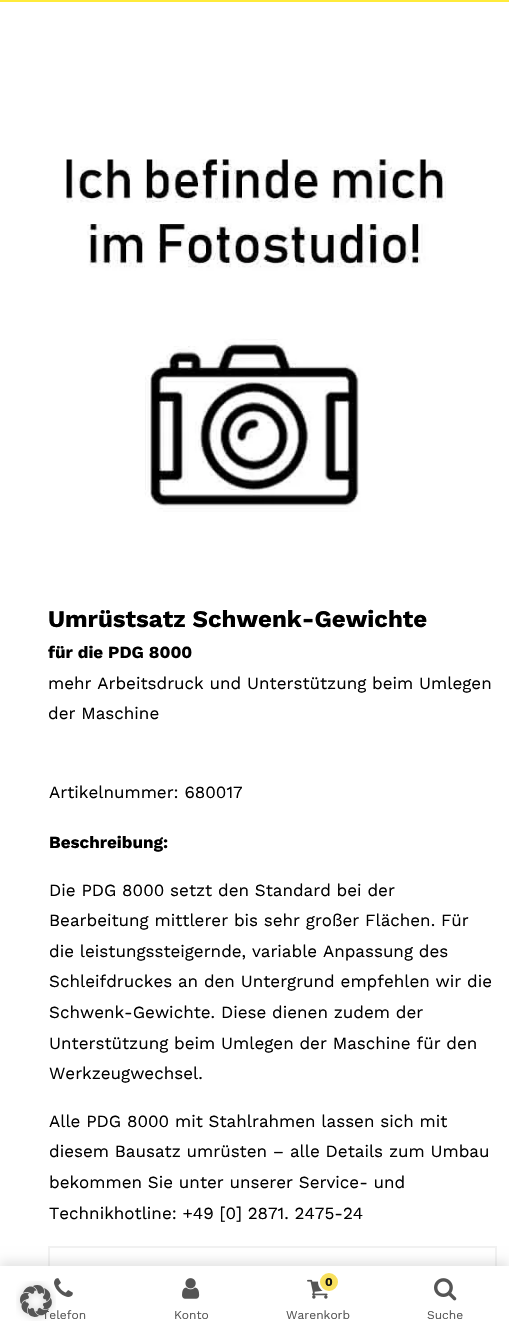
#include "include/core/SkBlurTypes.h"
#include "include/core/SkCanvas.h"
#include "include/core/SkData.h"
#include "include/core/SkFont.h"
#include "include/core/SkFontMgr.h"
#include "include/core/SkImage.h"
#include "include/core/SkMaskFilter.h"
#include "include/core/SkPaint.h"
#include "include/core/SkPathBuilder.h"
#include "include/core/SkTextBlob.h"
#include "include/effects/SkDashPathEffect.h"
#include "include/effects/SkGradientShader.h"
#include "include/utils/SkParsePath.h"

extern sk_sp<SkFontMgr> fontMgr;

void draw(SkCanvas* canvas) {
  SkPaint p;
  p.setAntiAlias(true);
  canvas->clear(SK_ColorWHITE);
  p.setColor(SkColorSetRGB(255, 235, 59));
  canvas->drawRect(SkRect::MakeLTRB(0, 0, 509, 2), p);
  canvas->drawImageRect(SkImages::DeferredFromEncodedData(SkData::MakeFromFileName("images/1.png")), SkRect::MakeLTRB(66, 159, 446, 512), SkSamplingOptions());
  p.setColor(SkColorSetRGB(242, 242, 242));
  canvas->drawRect(SkRect::MakeLTRB(48, 1246, 497, 1248), p);
  canvas->drawRect(SkRect::MakeLTRB(495, 1246, 497, 1266), p);
  canvas->drawRect(SkRect::MakeLTRB(48, 1246, 50, 1266), p);
  p.setColor(SkColorSetARGB(26, 0, 0, 0));
  p.setMaskFilter(SkMaskFilter::MakeBlur(kNormal_SkBlurStyle, 5));
  canvas->drawRect(SkRect::MakeLTRB(0, 1261, 509, 1332), p);
  p.setMaskFilter(nullptr);
  p.setColor(SK_ColorWHITE);
  canvas->drawRect(SkRect::MakeLTRB(0, 1266, 509, 1337), p);
  canvas->drawImageRect(SkImages::DeferredFromEncodedData(SkData::MakeFromFileName("images/3.png")), SkRect::MakeLTRB(54, 1278, 73, 1297), SkSamplingOptions());
  canvas->drawImageRect(SkImages::DeferredFromEncodedData(SkData::MakeFromFileName("images/4.png")), SkRect::MakeLTRB(182, 1278, 200, 1299), SkSamplingOptions());
  canvas->drawImageRect(SkImages::DeferredFromEncodedData(SkData::MakeFromFileName("images/5.png")), SkRect::MakeLTRB(307, 1279, 328, 1299), SkSamplingOptions());
  p.setColor(SkColorSetRGB(248, 224, 93));
  canvas->drawCircle(329, 1282, 10, p);
  p.setStyle(SkPaint::kStroke_Style);
  p.setStrokeWidth(2);
  p.setColor(SK_ColorWHITE);
  canvas->drawCircle(329, 1282, 10, p);
  canvas->drawImageRect(SkImages::DeferredFromEncodedData(SkData::MakeFromFileName("images/6.png")), SkRect::MakeLTRB(434, 1278, 457, 1301), SkSamplingOptions());
  SkFont font1(fontMgr->matchFamilyStyle("Work Sans", SkFontStyle::Bold()), 24);
  font1.setSubpixel(true);
  p.setStyle(SkPaint::kFill_Style);
  p.setColor(SK_ColorBLACK);
  canvas->drawString("Umrüstsatz Schwenk-Gewichte", 48, 627, font1, p);
  SkFont font2(fontMgr->matchFamilyStyle("Work Sans", SkFontStyle::Bold()), 17);
  font2.setSubpixel(true);
  canvas->drawString("für die PDG 8000", 48, 658, font2, p);
  SkFont font3(fontMgr->matchFamilyStyle("Work Sans", SkFontStyle::Normal()), 17);
  font3.setSubpixel(true);
  canvas->drawString("mehr Arbeitsdruck und Unterstützung beim Umlegen", 48, 689, font3, p);
  canvas->drawString("der Maschine", 48, 719, font3, p);
  canvas->drawString("Artikelnummer: 680017", 49, 798, font3, p);
  canvas->drawString("Beschreibung:", 49, 848, font2, p);
  canvas->drawString("Die PDG 8000 setzt den Standard bei der", 49, 896, font3, p);
  canvas->drawString("Bearbeitung mittlerer bis sehr großer Flächen. Für", 49, 926, font3, p);
  canvas->drawString("die leistungssteigernde, variable Anpassung des", 49, 957, font3, p);
  canvas->drawString("Schleifdruckes an den Untergrund empfehlen wir die", 49, 987, font3, p);
  canvas->drawString("Schwenk-Gewichte. Diese dienen zudem der", 49, 1018, font3, p);
  canvas->drawString("Unterstützung beim Umlegen der Maschine für den", 49, 1049, font3, p);
  canvas->drawString("Werkzeugwechsel.", 49, 1079, font3, p);
  canvas->drawString("Alle PDG 8000 mit Stahlrahmen lassen sich mit", 49, 1127, font3, p);
  canvas->drawString("diesem Bausatz umrüsten – alle Details zum Umbau", 49, 1157, font3, p);
  canvas->drawString("bekommen Sie unter unserer Service- und", 49, 1188, font3, p);
  canvas->drawString("Technikhotline: +49 [0] 2871. 2475-24", 49, 1219, font3, p);
  SkFont font4(fontMgr->matchFamilyStyle("Work Sans", SkFontStyle::Normal()), 12);
  font4.setSubpixel(true);
  p.setColor(SkColorSetRGB(85, 85, 85));
  canvas->drawString("Telefon", 42, 1319, font4, p);
  canvas->drawImageRect(SkImages::DeferredFromEncodedData(SkData::MakeFromFileName("images/2.png")), SkRect::MakeLTRB(16, 1281, 56, 1321), SkSamplingOptions());
  canvas->drawString("Konto", 174, 1319, font4, p);
  SkFont font5(fontMgr->matchFamilyStyle("Work Sans", SkFontStyle::Bold()), 12);
  font5.setSubpixel(true);
  p.setColor(SkColorSetRGB(17, 17, 17));
  canvas->drawString("0", 325, 1286, font5, p);
  p.setColor(SkColorSetRGB(85, 85, 85));
  canvas->drawString("Warenkorb", 286, 1319, font4, p);
  canvas->drawString("Suche", 427, 1319, font4, p);
}
